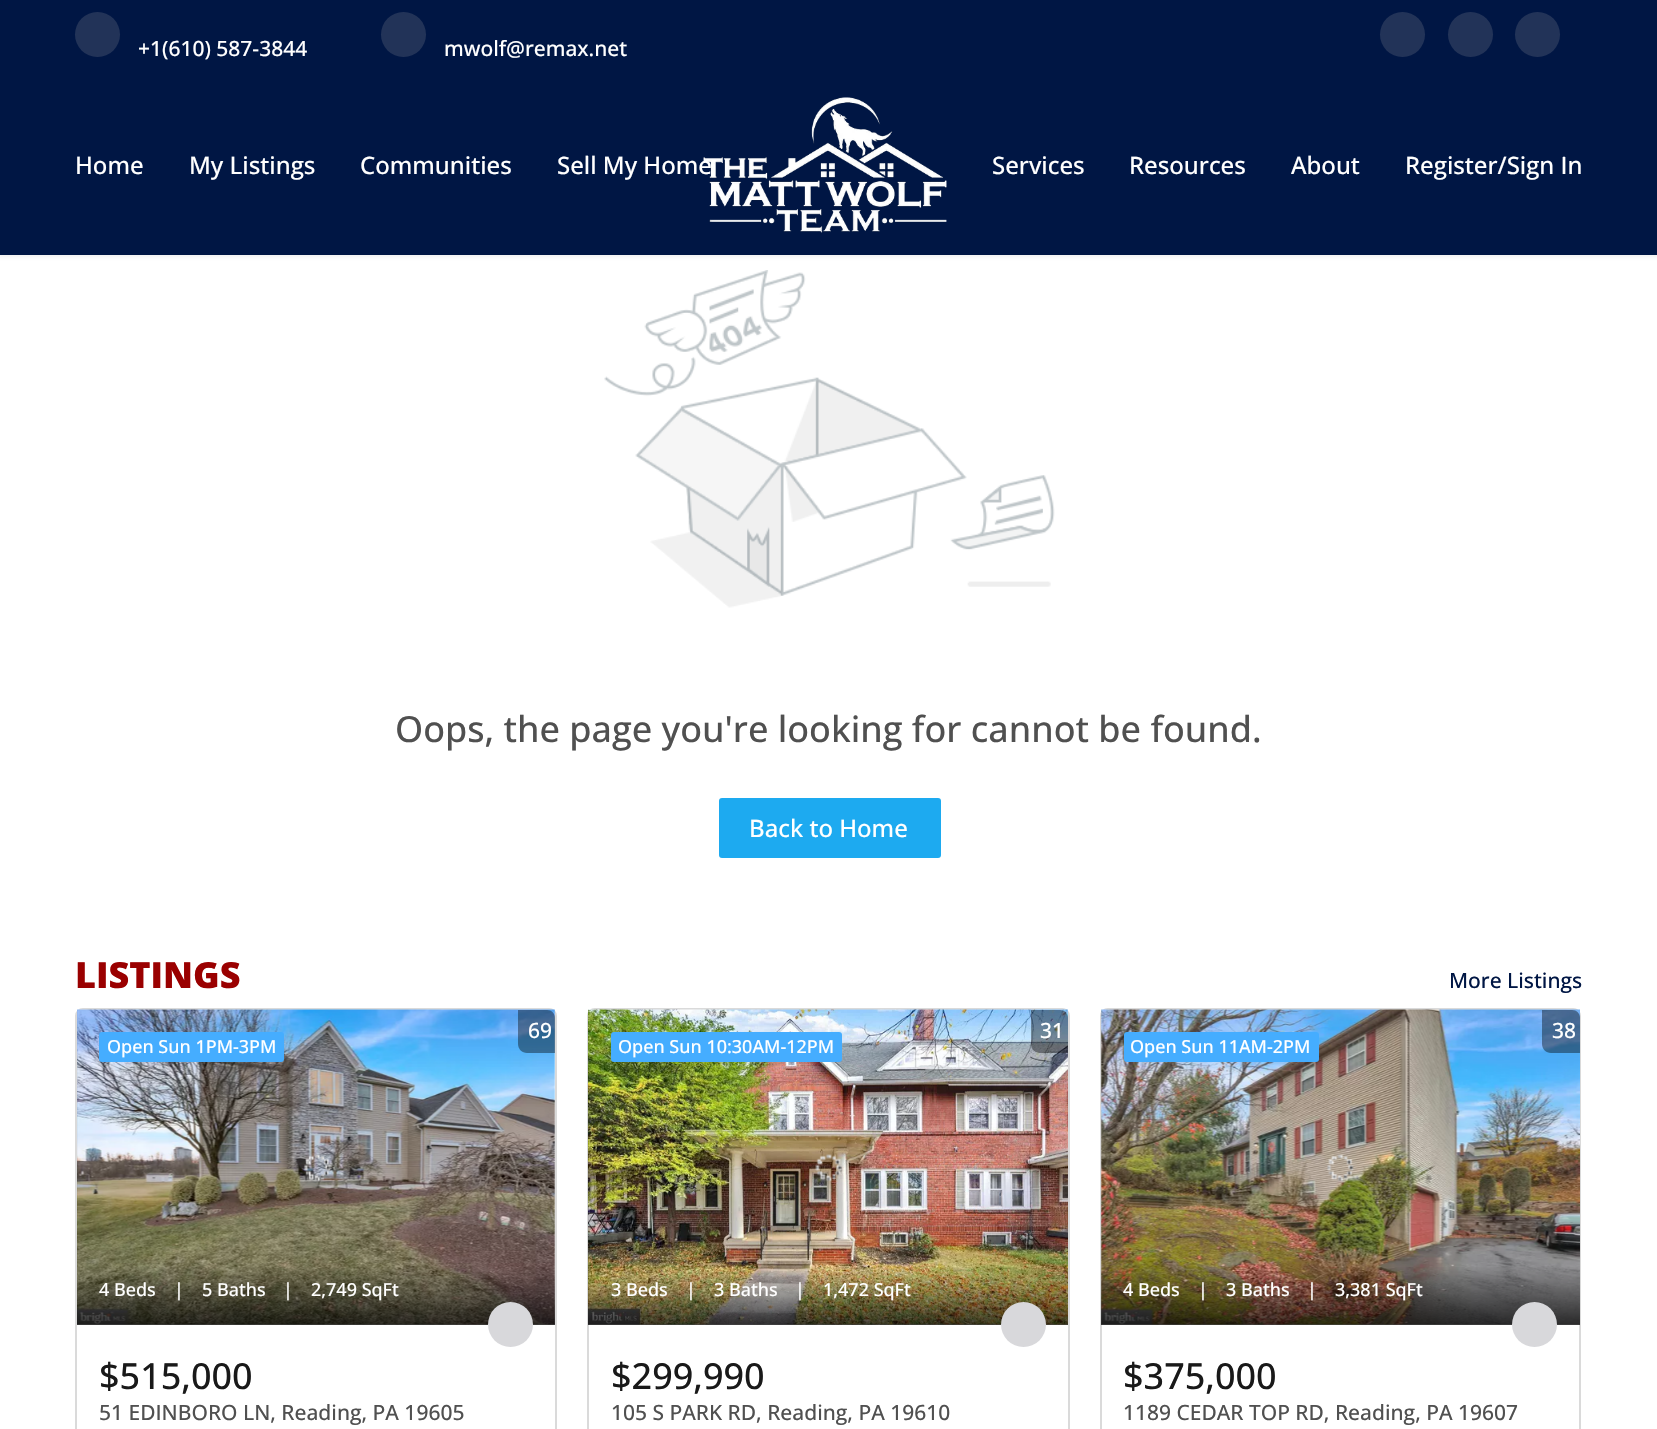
#include "include/core/SkBlurTypes.h"
#include "include/core/SkCanvas.h"
#include "include/core/SkData.h"
#include "include/core/SkFont.h"
#include "include/core/SkFontMgr.h"
#include "include/core/SkImage.h"
#include "include/core/SkMaskFilter.h"
#include "include/core/SkPaint.h"
#include "include/core/SkPathBuilder.h"
#include "include/core/SkTextBlob.h"
#include "include/effects/SkDashPathEffect.h"
#include "include/effects/SkGradientShader.h"
#include "include/utils/SkParsePath.h"

extern sk_sp<SkFontMgr> fontMgr;

void draw(SkCanvas* canvas) {
  SkPaint p;
  p.setAntiAlias(true);
  canvas->clear(SK_ColorWHITE);
  p.setColor(SkColorSetARGB(13, 0, 0, 0));
  p.setMaskFilter(SkMaskFilter::MakeBlur(kNormal_SkBlurStyle, 1.5f));
  canvas->drawRect(SkRect::MakeLTRB(-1, -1, 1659, 257), p);
  p.setMaskFilter(nullptr);
  p.setColor(SkColorSetRGB(0, 22, 68));
  canvas->drawRect(SkRect::MakeLTRB(0, 0, 1657, 255), p);
  p.setColor(SkColorSetRGB(34, 51, 88));
  canvas->drawCircle(97.5f, 34.5f, 22.5f, p);
  canvas->drawCircle(403.5f, 34.5f, 22.5f, p);
  canvas->drawCircle(1402.5f, 34.5f, 22.5f, p);
  canvas->drawCircle(1470.5f, 34.5f, 22.5f, p);
  canvas->drawCircle(1537.5f, 34.5f, 22.5f, p);
  canvas->drawImageRect(SkImages::DeferredFromEncodedData(SkData::MakeFromFileName("images/1.png")), SkRect::MakeLTRB(703, 97, 947, 233), SkSamplingOptions());
  canvas->drawImageRect(SkImages::DeferredFromEncodedData(SkData::MakeFromFileName("images/2.png")), SkRect::MakeLTRB(604, 270, 1055, 608), SkSamplingOptions());
  p.setColor(SkColorSetRGB(29, 170, 240));
  canvas->drawRoundRect(SkRect::MakeLTRB(719, 798, 941, 858), 3, 3, p);
  p.setStyle(SkPaint::kStroke_Style);
  p.setStrokeWidth(2);
  p.setColor(SkColorSetRGB(218, 218, 218));
  canvas->drawRoundRect(SkRect::MakeLTRB(76, 1009, 556, 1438), 7, 7, p);
  canvas->drawImageRect(SkImages::DeferredFromEncodedData(SkData::MakeFromFileName("images/3.png")), SkRect::MakeLTRB(77, 1009, 555, 1325), SkSamplingOptions());
  canvas->drawImageRect(SkImages::DeferredFromEncodedData(SkData::MakeFromFileName("images/4.png")), SkRect::MakeLTRB(304, 1154, 331, 1182), SkSamplingOptions());
  p.setStyle(SkPaint::kFill_Style);
  p.setColor(SkColorSetARGB(102, 0, 0, 0));
  canvas->drawPath(SkPathBuilder().moveTo(518, 1010).lineTo(547, 1010).cubicTo(551.5f, 1010, 555, 1013.5f, 555, 1018).lineTo(555, 1053).lineTo(527, 1053).cubicTo(522, 1053, 518, 1049, 518, 1044).close().detach(), p);
  {
    const SkColor colors[] = {SkColorSetARGB(0, 0, 0, 0), SkColorSetARGB(179, 0, 0, 0)};
    const float stops[] = {0, 1};
    const SkPoint ends[] = {{316, 1265}, {316, 1325}};
    p.setShader(SkGradientShader::MakeLinear(ends, colors, stops, 2, SkTileMode::kClamp));
    p.setAlpha(255);
  }
  canvas->drawRect(SkRect::MakeLTRB(77, 1267, 555, 1325), p);
  p.setShader(nullptr);
  p.setColor(SkColorSetRGB(69, 173, 255));
  canvas->drawRoundRect(SkRect::MakeLTRB(99, 1032, 284, 1062), 3, 3, p);
  p.setColor(SkColorSetRGB(216, 216, 219));
  canvas->drawCircle(510.5f, 1324.5f, 22.5f, p);
  p.setStyle(SkPaint::kStroke_Style);
  p.setColor(SkColorSetRGB(218, 218, 218));
  canvas->drawRoundRect(SkRect::MakeLTRB(588, 1009, 1069, 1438), 7, 7, p);
  canvas->drawImageRect(SkImages::DeferredFromEncodedData(SkData::MakeFromFileName("images/5.png")), SkRect::MakeLTRB(588, 1009, 1068, 1325), SkSamplingOptions());
  canvas->drawImageRect(SkImages::DeferredFromEncodedData(SkData::MakeFromFileName("images/6.png")), SkRect::MakeLTRB(815, 1154, 843, 1182), SkSamplingOptions());
  p.setStyle(SkPaint::kFill_Style);
  p.setColor(SkColorSetARGB(102, 0, 0, 0));
  canvas->drawPath(SkPathBuilder().moveTo(1031, 1010).lineTo(1060, 1010).cubicTo(1064.5f, 1010, 1068, 1013.5f, 1068, 1018).lineTo(1068, 1053).lineTo(1040, 1053).cubicTo(1035, 1053, 1031, 1049, 1031, 1044).close().detach(), p);
  {
    const SkColor colors[] = {SkColorSetARGB(0, 0, 0, 0), SkColorSetARGB(179, 0, 0, 0)};
    const float stops[] = {0, 1};
    const SkPoint ends[] = {{828, 1265}, {828, 1325}};
    p.setShader(SkGradientShader::MakeLinear(ends, colors, stops, 2, SkTileMode::kClamp));
    p.setAlpha(255);
  }
  canvas->drawRect(SkRect::MakeLTRB(588, 1267, 1068, 1325), p);
  p.setShader(nullptr);
  p.setColor(SkColorSetRGB(69, 173, 255));
  canvas->drawRoundRect(SkRect::MakeLTRB(611, 1032, 842, 1062), 3, 3, p);
  p.setColor(SkColorSetRGB(216, 216, 219));
  canvas->drawCircle(1023.5f, 1324.5f, 22.5f, p);
  p.setStyle(SkPaint::kStroke_Style);
  p.setColor(SkColorSetRGB(218, 218, 218));
  canvas->drawRoundRect(SkRect::MakeLTRB(1101, 1009, 1580, 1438), 7, 7, p);
  canvas->drawImageRect(SkImages::DeferredFromEncodedData(SkData::MakeFromFileName("images/7.png")), SkRect::MakeLTRB(1101, 1009, 1580, 1325), SkSamplingOptions());
  canvas->drawImageRect(SkImages::DeferredFromEncodedData(SkData::MakeFromFileName("images/8.png")), SkRect::MakeLTRB(1327, 1154, 1354, 1182), SkSamplingOptions());
  p.setStyle(SkPaint::kFill_Style);
  p.setColor(SkColorSetARGB(102, 0, 0, 0));
  canvas->drawPath(SkPathBuilder().moveTo(1542, 1010).lineTo(1572, 1010).cubicTo(1576.5f, 1010, 1580, 1013.5f, 1580, 1018).lineTo(1580, 1053).lineTo(1551, 1053).cubicTo(1546, 1053, 1542, 1049, 1542, 1044).close().detach(), p);
  {
    const SkColor colors[] = {SkColorSetARGB(0, 0, 0, 0), SkColorSetARGB(179, 0, 0, 0)};
    const float stops[] = {0, 1};
    const SkPoint ends[] = {{1340, 1265}, {1340, 1325}};
    p.setShader(SkGradientShader::MakeLinear(ends, colors, stops, 2, SkTileMode::kClamp));
    p.setAlpha(255);
  }
  canvas->drawRect(SkRect::MakeLTRB(1101, 1267, 1580, 1325), p);
  p.setShader(nullptr);
  p.setColor(SkColorSetRGB(69, 173, 255));
  canvas->drawRoundRect(SkRect::MakeLTRB(1124, 1032, 1319, 1062), 3, 3, p);
  p.setColor(SkColorSetRGB(216, 216, 219));
  canvas->drawCircle(1534.5f, 1324.5f, 22.5f, p);
  SkFont font1(fontMgr->matchFamilyStyle("Open Sans", SkFontStyle(500, SkFontStyle::kNormal_Width, SkFontStyle::kUpright_Slant)), 21);
  font1.setSubpixel(true);
  p.setColor(SK_ColorWHITE);
  canvas->drawString("+1(610) 587-3844", 138, 56, font1, p);
  canvas->drawString("mwolf@remax.net", 444, 56, font1, p);
  SkFont font2(fontMgr->matchFamilyStyle("Open Sans", SkFontStyle(500, SkFontStyle::kNormal_Width, SkFontStyle::kUpright_Slant)), 24);
  font2.setSubpixel(true);
  canvas->drawString("Home", 75, 174, font2, p);
  canvas->drawString("My Listings", 189, 174, font2, p);
  canvas->drawString("Communities", 360, 174, font2, p);
  canvas->drawString("Sell My Home", 557, 174, font2, p);
  canvas->drawString("Services", 992, 174, font2, p);
  canvas->drawString("Resources", 1129, 174, font2, p);
  canvas->drawString("About", 1291, 174, font2, p);
  canvas->drawString("Register/Sign In", 1405, 174, font2, p);
  SkFont font3(fontMgr->matchFamilyStyle("Open Sans", SkFontStyle(500, SkFontStyle::kNormal_Width, SkFontStyle::kUpright_Slant)), 36);
  font3.setSubpixel(true);
  p.setColor(SkColorSetRGB(80, 80, 80));
  canvas->drawString("Oops, the page you're looking for cannot be found.", 395, 742, font3, p);
  p.setColor(SK_ColorWHITE);
  canvas->drawString("Back to Home", 749, 837, font2, p);
  SkFont font4(fontMgr->matchFamilyStyle("Open Sans", SkFontStyle(800, SkFontStyle::kNormal_Width, SkFontStyle::kUpright_Slant)), 36);
  font4.setSubpixel(true);
  p.setColor(SkColorSetRGB(154, 0, 0));
  canvas->drawString("LISTINGS", 75, 988, font4, p);
  p.setColor(SkColorSetRGB(0, 22, 68));
  canvas->drawString("More Listings", 1449, 988, font1, p);
  p.setColor(SK_ColorWHITE);
  canvas->drawString("69", 528, 1038, font1, p);
  SkFont font5(fontMgr->matchFamilyStyle("Open Sans", SkFontStyle(500, SkFontStyle::kNormal_Width, SkFontStyle::kUpright_Slant)), 18);
  font5.setSubpixel(true);
  canvas->drawString("4 Beds", 99, 1296, font5, p);
  canvas->drawString("|", 174, 1296, font5, p);
  canvas->drawString("5 Baths", 202, 1296, font5, p);
  canvas->drawString("|", 283, 1296, font5, p);
  canvas->drawString("2,749 SqFt", 311, 1296, font5, p);
  canvas->drawString("Open Sun 1PM-3PM", 107, 1053, font5, p);
  p.setColor(SkColorSetRGB(25, 25, 25));
  canvas->drawString("$515,000", 99, 1389, font3, p);
  p.setColor(SkColorSetRGB(80, 80, 80));
  canvas->drawString("51 EDINBORO LN, Reading, PA 19605", 99, 1420, font1, p);
  p.setColor(SK_ColorWHITE);
  canvas->drawString("31", 1040, 1038, font1, p);
  canvas->drawString("3 Beds", 611, 1296, font5, p);
  canvas->drawString("|", 686, 1296, font5, p);
  canvas->drawString("3 Baths", 714, 1296, font5, p);
  canvas->drawString("|", 795, 1296, font5, p);
  canvas->drawString("1,472 SqFt", 823, 1296, font5, p);
  canvas->drawString("Open Sun 10:30AM-12PM", 618, 1053, font5, p);
  p.setColor(SkColorSetRGB(25, 25, 25));
  canvas->drawString("$299,990", 611, 1389, font3, p);
  p.setColor(SkColorSetRGB(80, 80, 80));
  canvas->drawString("105 S PARK RD, Reading, PA 19610", 611, 1420, font1, p);
  p.setColor(SK_ColorWHITE);
  canvas->drawString("38", 1552, 1038, font1, p);
  canvas->drawString("4 Beds", 1123, 1296, font5, p);
  canvas->drawString("|", 1198, 1296, font5, p);
  canvas->drawString("3 Baths", 1226, 1296, font5, p);
  canvas->drawString("|", 1307, 1296, font5, p);
  canvas->drawString("3,381 SqFt", 1335, 1296, font5, p);
  canvas->drawString("Open Sun 11AM-2PM", 1130, 1053, font5, p);
  p.setColor(SkColorSetRGB(25, 25, 25));
  canvas->drawString("$375,000", 1123, 1389, font3, p);
  p.setColor(SkColorSetRGB(80, 80, 80));
  canvas->drawString("1189 CEDAR TOP RD, Reading, PA 19607", 1123, 1420, font1, p);
}
